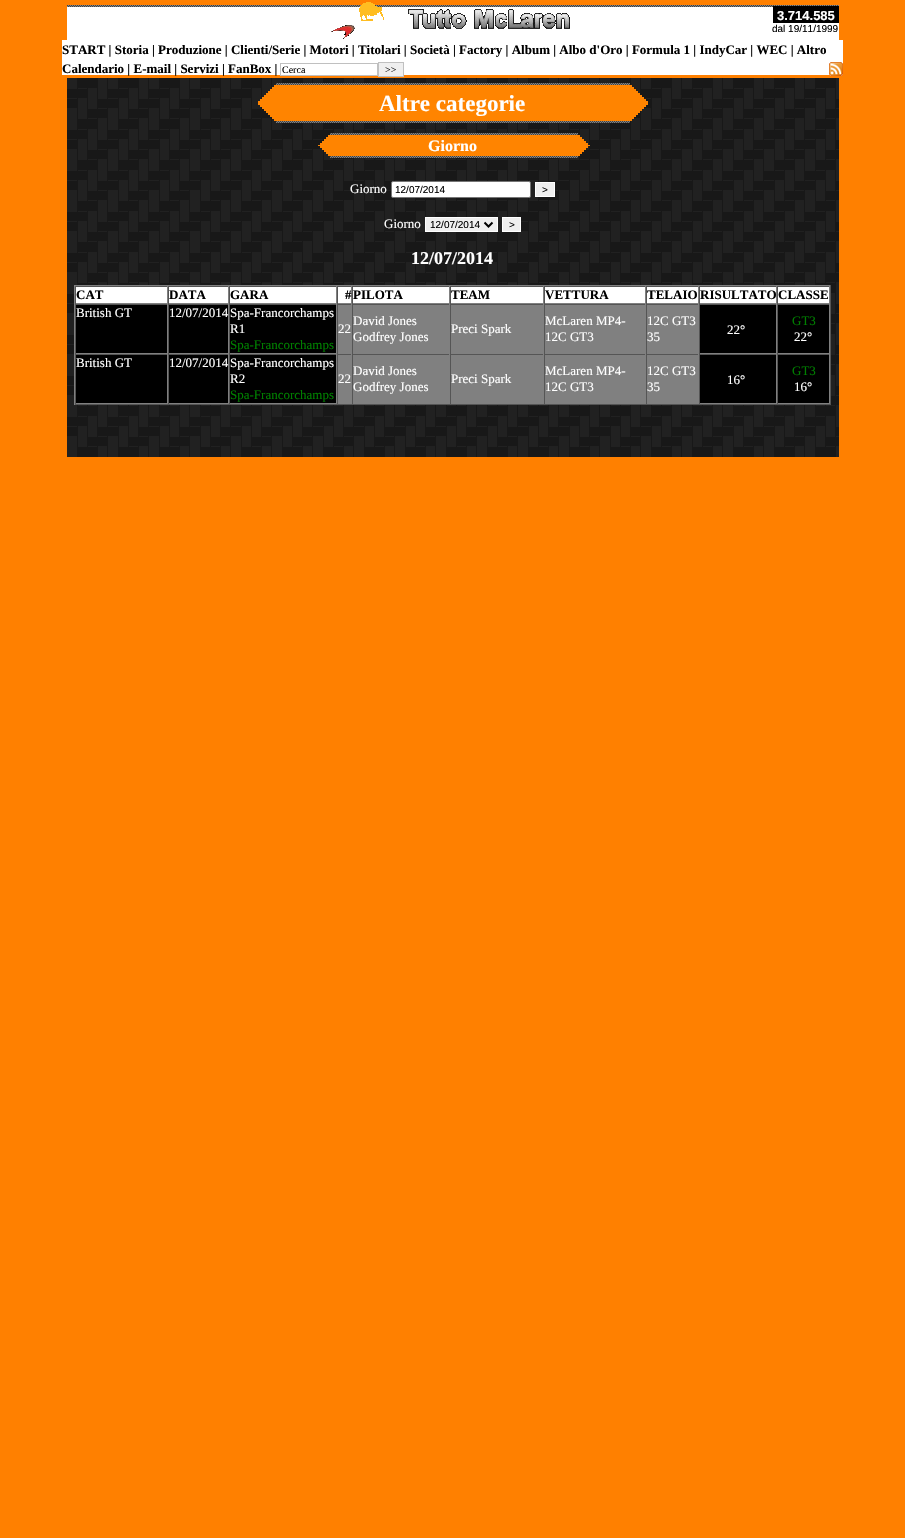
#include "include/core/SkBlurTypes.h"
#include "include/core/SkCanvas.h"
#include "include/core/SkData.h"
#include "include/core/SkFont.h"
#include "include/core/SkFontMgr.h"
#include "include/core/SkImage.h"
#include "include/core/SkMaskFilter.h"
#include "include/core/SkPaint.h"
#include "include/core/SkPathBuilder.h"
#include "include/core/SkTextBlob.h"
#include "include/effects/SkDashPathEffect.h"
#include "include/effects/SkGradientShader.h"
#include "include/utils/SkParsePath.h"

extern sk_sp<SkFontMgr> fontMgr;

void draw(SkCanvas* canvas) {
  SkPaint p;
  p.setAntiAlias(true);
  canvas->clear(SkColorSetRGB(255, 128, 0));
  canvas->drawImageRect(SkImages::DeferredFromEncodedData(SkData::MakeFromFileName("images/1.png")), SkRect::MakeLTRB(67, 5, 839, 40), SkSamplingOptions());
  canvas->drawImageRect(SkImages::DeferredFromEncodedData(SkData::MakeFromFileName("images/2.png")), SkRect::MakeLTRB(331, 2, 570, 39), SkSamplingOptions());
  p.setColor(SK_ColorBLACK);
  canvas->drawRect(SkRect::MakeLTRB(773, 6, 839, 23), p);
  p.setColor(SK_ColorWHITE);
  canvas->drawRect(SkRect::MakeLTRB(62, 40, 843, 75), p);
  p.setStyle(SkPaint::kStroke_Style);
  p.setStrokeWidth(1);
  p.setColor(SkColorSetRGB(192, 192, 192));
  canvas->drawRect(SkRect::MakeLTRB(280.5f, 63.5f, 377.5f, 75.5f), p);
  p.setStyle(SkPaint::kFill_Style);
  p.setColor(SkColorSetRGB(239, 239, 239));
  canvas->drawRect(SkRect::MakeLTRB(378.5f, 62.5f, 403.5f, 76.5f), p);
  p.setStyle(SkPaint::kStroke_Style);
  p.setColor(SkColorSetRGB(192, 192, 192));
  canvas->drawRect(SkRect::MakeLTRB(378.5f, 62.5f, 403.5f, 76.5f), p);
  canvas->drawImageRect(SkImages::DeferredFromEncodedData(SkData::MakeFromFileName("images/3.png")), SkRect::MakeLTRB(829, 62, 843, 76), SkSamplingOptions());
  canvas->drawImageRect(SkImages::DeferredFromEncodedData(SkData::MakeFromFileName("images/4.png")), SkRect::MakeLTRB(67, 78, 839, 457), SkSamplingOptions());
  canvas->drawImageRect(SkImages::DeferredFromEncodedData(SkData::MakeFromFileName("images/5.png")), SkRect::MakeLTRB(258, 83, 648, 123), SkSamplingOptions());
  canvas->drawImageRect(SkImages::DeferredFromEncodedData(SkData::MakeFromFileName("images/6.png")), SkRect::MakeLTRB(318, 133, 590, 158), SkSamplingOptions());
  p.setStyle(SkPaint::kFill_Style);
  p.setColor(SK_ColorWHITE);
  canvas->drawRoundRect(SkRect::MakeLTRB(391.5f, 181.5f, 530.5f, 197.5f), 1.5f, 1.5f, p);
  p.setStyle(SkPaint::kStroke_Style);
  p.setColor(SkColorSetRGB(118, 118, 118));
  canvas->drawRoundRect(SkRect::MakeLTRB(391.5f, 181.5f, 530.5f, 197.5f), 1.5f, 1.5f, p);
  p.setStyle(SkPaint::kFill_Style);
  p.setColor(SkColorSetRGB(239, 239, 239));
  canvas->drawRect(SkRect::MakeLTRB(535.5f, 182.5f, 554.5f, 196.5f), p);
  p.setStyle(SkPaint::kStroke_Style);
  p.setColor(SK_ColorWHITE);
  canvas->drawRect(SkRect::MakeLTRB(535.5f, 182.5f, 554.5f, 196.5f), p);
  p.setStyle(SkPaint::kFill_Style);
  p.setColor(SkColorSetRGB(239, 239, 239));
  canvas->drawRect(SkRect::MakeLTRB(425.5f, 217.5f, 497.5f, 231.5f), p);
  p.setStyle(SkPaint::kStroke_Style);
  p.setColor(SK_ColorWHITE);
  canvas->drawRect(SkRect::MakeLTRB(425.5f, 217.5f, 497.5f, 231.5f), p);
  p.setStrokeWidth(2);
  p.setColor(SK_ColorBLACK);
  canvas->drawPath(SkPathBuilder().moveTo(484.5f, 222.5f).lineTo(488.5f, 226.5f).lineTo(492.5f, 222.5f).detach(), p);
  p.setStyle(SkPaint::kFill_Style);
  p.setColor(SkColorSetRGB(239, 239, 239));
  canvas->drawRect(SkRect::MakeLTRB(502.5f, 217.5f, 520.5f, 231.5f), p);
  p.setStyle(SkPaint::kStroke_Style);
  p.setStrokeWidth(1);
  p.setColor(SK_ColorWHITE);
  canvas->drawRect(SkRect::MakeLTRB(502.5f, 217.5f, 520.5f, 231.5f), p);
  p.setStyle(SkPaint::kFill_Style);
  p.setColor(SkColorSetRGB(128, 128, 128));
  canvas->drawRect(SkRect::MakeLTRB(74, 285, 831, 286), p);
  p.setColor(SkColorSetRGB(85, 85, 85));
  canvas->drawRect(SkRect::MakeLTRB(830, 285, 831, 405), p);
  canvas->drawRect(SkRect::MakeLTRB(74, 404, 831, 405), p);
  p.setColor(SkColorSetRGB(128, 128, 128));
  canvas->drawRect(SkRect::MakeLTRB(74, 285, 75, 405), p);
  p.setColor(SK_ColorWHITE);
  canvas->drawRect(SkRect::MakeLTRB(76, 287, 167, 303), p);
  p.setColor(SkColorSetRGB(85, 85, 85));
  canvas->drawRect(SkRect::MakeLTRB(75, 286, 830, 287), p);
  p.setColor(SkColorSetRGB(128, 128, 128));
  canvas->drawRect(SkRect::MakeLTRB(167, 286, 168, 304), p);
  canvas->drawRect(SkRect::MakeLTRB(75, 303, 168, 304), p);
  p.setColor(SkColorSetRGB(85, 85, 85));
  canvas->drawRect(SkRect::MakeLTRB(75, 286, 76, 304), p);
  p.setColor(SK_ColorWHITE);
  canvas->drawRect(SkRect::MakeLTRB(169, 287, 228, 303), p);
  p.setColor(SkColorSetRGB(128, 128, 128));
  canvas->drawRect(SkRect::MakeLTRB(228, 286, 229, 304), p);
  canvas->drawRect(SkRect::MakeLTRB(168, 303, 229, 304), p);
  p.setColor(SkColorSetRGB(85, 85, 85));
  canvas->drawRect(SkRect::MakeLTRB(168, 286, 169, 304), p);
  p.setColor(SK_ColorWHITE);
  canvas->drawRect(SkRect::MakeLTRB(230, 287, 336, 303), p);
  p.setColor(SkColorSetRGB(128, 128, 128));
  canvas->drawRect(SkRect::MakeLTRB(336, 286, 337, 304), p);
  canvas->drawRect(SkRect::MakeLTRB(229, 303, 337, 304), p);
  p.setColor(SkColorSetRGB(85, 85, 85));
  canvas->drawRect(SkRect::MakeLTRB(229, 286, 230, 304), p);
  p.setColor(SK_ColorWHITE);
  canvas->drawRect(SkRect::MakeLTRB(338, 287, 351, 303), p);
  p.setColor(SkColorSetRGB(128, 128, 128));
  canvas->drawRect(SkRect::MakeLTRB(351, 286, 352, 304), p);
  canvas->drawRect(SkRect::MakeLTRB(337, 303, 352, 304), p);
  p.setColor(SkColorSetRGB(85, 85, 85));
  canvas->drawRect(SkRect::MakeLTRB(337, 286, 338, 304), p);
  p.setColor(SK_ColorWHITE);
  canvas->drawRect(SkRect::MakeLTRB(353, 287, 449, 303), p);
  p.setColor(SkColorSetRGB(128, 128, 128));
  canvas->drawRect(SkRect::MakeLTRB(449, 286, 450, 304), p);
  canvas->drawRect(SkRect::MakeLTRB(352, 303, 450, 304), p);
  p.setColor(SkColorSetRGB(85, 85, 85));
  canvas->drawRect(SkRect::MakeLTRB(352, 286, 353, 304), p);
  p.setColor(SK_ColorWHITE);
  canvas->drawRect(SkRect::MakeLTRB(451, 287, 543, 303), p);
  p.setColor(SkColorSetRGB(128, 128, 128));
  canvas->drawRect(SkRect::MakeLTRB(543, 286, 544, 304), p);
  canvas->drawRect(SkRect::MakeLTRB(450, 303, 544, 304), p);
  p.setColor(SkColorSetRGB(85, 85, 85));
  canvas->drawRect(SkRect::MakeLTRB(450, 286, 451, 304), p);
  p.setColor(SK_ColorWHITE);
  canvas->drawRect(SkRect::MakeLTRB(545, 287, 645, 303), p);
  p.setColor(SkColorSetRGB(128, 128, 128));
  canvas->drawRect(SkRect::MakeLTRB(645, 286, 646, 304), p);
  canvas->drawRect(SkRect::MakeLTRB(544, 303, 646, 304), p);
  p.setColor(SkColorSetRGB(85, 85, 85));
  canvas->drawRect(SkRect::MakeLTRB(544, 286, 545, 304), p);
  p.setColor(SK_ColorWHITE);
  canvas->drawRect(SkRect::MakeLTRB(647, 287, 698, 303), p);
  p.setColor(SkColorSetRGB(128, 128, 128));
  canvas->drawRect(SkRect::MakeLTRB(698, 286, 699, 304), p);
  canvas->drawRect(SkRect::MakeLTRB(646, 303, 699, 304), p);
  p.setColor(SkColorSetRGB(85, 85, 85));
  canvas->drawRect(SkRect::MakeLTRB(646, 286, 647, 304), p);
  p.setColor(SK_ColorWHITE);
  canvas->drawRect(SkRect::MakeLTRB(700, 287, 776, 303), p);
  p.setColor(SkColorSetRGB(128, 128, 128));
  canvas->drawRect(SkRect::MakeLTRB(776, 286, 777, 304), p);
  canvas->drawRect(SkRect::MakeLTRB(699, 303, 777, 304), p);
  p.setColor(SkColorSetRGB(85, 85, 85));
  canvas->drawRect(SkRect::MakeLTRB(699, 286, 700, 304), p);
  p.setColor(SK_ColorWHITE);
  canvas->drawRect(SkRect::MakeLTRB(778, 287, 829, 303), p);
  p.setColor(SkColorSetRGB(128, 128, 128));
  canvas->drawRect(SkRect::MakeLTRB(829, 286, 830, 304), p);
  canvas->drawRect(SkRect::MakeLTRB(777, 303, 830, 304), p);
  p.setColor(SkColorSetRGB(85, 85, 85));
  canvas->drawRect(SkRect::MakeLTRB(777, 286, 778, 304), p);
  p.setColor(SK_ColorBLACK);
  canvas->drawRect(SkRect::MakeLTRB(76, 305, 167, 353), p);
  p.setColor(SkColorSetRGB(85, 85, 85));
  canvas->drawRect(SkRect::MakeLTRB(75, 304, 830, 305), p);
  p.setColor(SkColorSetRGB(128, 128, 128));
  canvas->drawRect(SkRect::MakeLTRB(167, 304, 168, 354), p);
  canvas->drawRect(SkRect::MakeLTRB(75, 353, 168, 354), p);
  p.setColor(SkColorSetRGB(85, 85, 85));
  canvas->drawRect(SkRect::MakeLTRB(75, 304, 76, 354), p);
  p.setColor(SK_ColorBLACK);
  canvas->drawRect(SkRect::MakeLTRB(169, 305, 228, 353), p);
  p.setColor(SkColorSetRGB(128, 128, 128));
  canvas->drawRect(SkRect::MakeLTRB(228, 304, 229, 354), p);
  canvas->drawRect(SkRect::MakeLTRB(168, 353, 229, 354), p);
  p.setColor(SkColorSetRGB(85, 85, 85));
  canvas->drawRect(SkRect::MakeLTRB(168, 304, 169, 354), p);
  p.setColor(SK_ColorBLACK);
  canvas->drawRect(SkRect::MakeLTRB(230, 305, 336, 353), p);
  p.setColor(SkColorSetRGB(128, 128, 128));
  canvas->drawRect(SkRect::MakeLTRB(336, 304, 337, 354), p);
  canvas->drawRect(SkRect::MakeLTRB(229, 353, 337, 354), p);
  p.setColor(SkColorSetRGB(85, 85, 85));
  canvas->drawRect(SkRect::MakeLTRB(229, 304, 230, 354), p);
  p.setColor(SkColorSetRGB(128, 128, 128));
  canvas->drawRect(SkRect::MakeLTRB(338, 305, 351, 354), p);
  canvas->drawRect(SkRect::MakeLTRB(351, 304, 352, 354), p);
  p.setColor(SkColorSetRGB(85, 85, 85));
  canvas->drawRect(SkRect::MakeLTRB(337, 304, 338, 354), p);
  p.setColor(SkColorSetRGB(128, 128, 128));
  canvas->drawRect(SkRect::MakeLTRB(353, 305, 449, 354), p);
  canvas->drawRect(SkRect::MakeLTRB(449, 304, 450, 354), p);
  p.setColor(SkColorSetRGB(85, 85, 85));
  canvas->drawRect(SkRect::MakeLTRB(352, 304, 353, 354), p);
  p.setColor(SkColorSetRGB(128, 128, 128));
  canvas->drawRect(SkRect::MakeLTRB(451, 305, 543, 354), p);
  canvas->drawRect(SkRect::MakeLTRB(543, 304, 544, 354), p);
  p.setColor(SkColorSetRGB(85, 85, 85));
  canvas->drawRect(SkRect::MakeLTRB(450, 304, 451, 354), p);
  p.setColor(SkColorSetRGB(128, 128, 128));
  canvas->drawRect(SkRect::MakeLTRB(545, 305, 645, 354), p);
  canvas->drawRect(SkRect::MakeLTRB(645, 304, 646, 354), p);
  p.setColor(SkColorSetRGB(85, 85, 85));
  canvas->drawRect(SkRect::MakeLTRB(544, 304, 545, 354), p);
  p.setColor(SkColorSetRGB(128, 128, 128));
  canvas->drawRect(SkRect::MakeLTRB(647, 305, 698, 354), p);
  canvas->drawRect(SkRect::MakeLTRB(698, 304, 699, 354), p);
  p.setColor(SkColorSetRGB(85, 85, 85));
  canvas->drawRect(SkRect::MakeLTRB(646, 304, 647, 354), p);
  p.setColor(SK_ColorBLACK);
  canvas->drawRect(SkRect::MakeLTRB(700, 305, 776, 353), p);
  p.setColor(SkColorSetRGB(128, 128, 128));
  canvas->drawRect(SkRect::MakeLTRB(776, 304, 777, 354), p);
  canvas->drawRect(SkRect::MakeLTRB(699, 353, 777, 354), p);
  p.setColor(SkColorSetRGB(85, 85, 85));
  canvas->drawRect(SkRect::MakeLTRB(699, 304, 700, 354), p);
  p.setColor(SK_ColorBLACK);
  canvas->drawRect(SkRect::MakeLTRB(778, 305, 829, 353), p);
  p.setColor(SkColorSetRGB(128, 128, 128));
  canvas->drawRect(SkRect::MakeLTRB(829, 304, 830, 354), p);
  canvas->drawRect(SkRect::MakeLTRB(777, 353, 830, 354), p);
  p.setColor(SkColorSetRGB(85, 85, 85));
  canvas->drawRect(SkRect::MakeLTRB(777, 304, 778, 354), p);
  p.setColor(SK_ColorBLACK);
  canvas->drawRect(SkRect::MakeLTRB(76, 355, 167, 403), p);
  p.setColor(SkColorSetRGB(85, 85, 85));
  canvas->drawRect(SkRect::MakeLTRB(75, 354, 830, 355), p);
  p.setColor(SkColorSetRGB(128, 128, 128));
  canvas->drawRect(SkRect::MakeLTRB(167, 354, 168, 404), p);
  canvas->drawRect(SkRect::MakeLTRB(75, 403, 168, 404), p);
  p.setColor(SkColorSetRGB(85, 85, 85));
  canvas->drawRect(SkRect::MakeLTRB(75, 354, 76, 404), p);
  p.setColor(SK_ColorBLACK);
  canvas->drawRect(SkRect::MakeLTRB(169, 355, 228, 403), p);
  p.setColor(SkColorSetRGB(128, 128, 128));
  canvas->drawRect(SkRect::MakeLTRB(228, 354, 229, 404), p);
  canvas->drawRect(SkRect::MakeLTRB(168, 403, 229, 404), p);
  p.setColor(SkColorSetRGB(85, 85, 85));
  canvas->drawRect(SkRect::MakeLTRB(168, 354, 169, 404), p);
  p.setColor(SK_ColorBLACK);
  canvas->drawRect(SkRect::MakeLTRB(230, 355, 336, 403), p);
  p.setColor(SkColorSetRGB(128, 128, 128));
  canvas->drawRect(SkRect::MakeLTRB(336, 354, 337, 404), p);
  canvas->drawRect(SkRect::MakeLTRB(229, 403, 337, 404), p);
  p.setColor(SkColorSetRGB(85, 85, 85));
  canvas->drawRect(SkRect::MakeLTRB(229, 354, 230, 404), p);
  p.setColor(SkColorSetRGB(128, 128, 128));
  canvas->drawRect(SkRect::MakeLTRB(338, 355, 351, 404), p);
  canvas->drawRect(SkRect::MakeLTRB(351, 354, 352, 404), p);
  p.setColor(SkColorSetRGB(85, 85, 85));
  canvas->drawRect(SkRect::MakeLTRB(337, 354, 338, 404), p);
  p.setColor(SkColorSetRGB(128, 128, 128));
  canvas->drawRect(SkRect::MakeLTRB(353, 355, 449, 404), p);
  canvas->drawRect(SkRect::MakeLTRB(449, 354, 450, 404), p);
  p.setColor(SkColorSetRGB(85, 85, 85));
  canvas->drawRect(SkRect::MakeLTRB(352, 354, 353, 404), p);
  p.setColor(SkColorSetRGB(128, 128, 128));
  canvas->drawRect(SkRect::MakeLTRB(451, 355, 543, 404), p);
  canvas->drawRect(SkRect::MakeLTRB(543, 354, 544, 404), p);
  p.setColor(SkColorSetRGB(85, 85, 85));
  canvas->drawRect(SkRect::MakeLTRB(450, 354, 451, 404), p);
  p.setColor(SkColorSetRGB(128, 128, 128));
  canvas->drawRect(SkRect::MakeLTRB(545, 355, 645, 404), p);
  canvas->drawRect(SkRect::MakeLTRB(645, 354, 646, 404), p);
  p.setColor(SkColorSetRGB(85, 85, 85));
  canvas->drawRect(SkRect::MakeLTRB(544, 354, 545, 404), p);
  p.setColor(SkColorSetRGB(128, 128, 128));
  canvas->drawRect(SkRect::MakeLTRB(647, 355, 698, 404), p);
  canvas->drawRect(SkRect::MakeLTRB(698, 354, 699, 404), p);
  p.setColor(SkColorSetRGB(85, 85, 85));
  canvas->drawRect(SkRect::MakeLTRB(646, 354, 647, 404), p);
  p.setColor(SK_ColorBLACK);
  canvas->drawRect(SkRect::MakeLTRB(700, 355, 776, 403), p);
  p.setColor(SkColorSetRGB(128, 128, 128));
  canvas->drawRect(SkRect::MakeLTRB(776, 354, 777, 404), p);
  canvas->drawRect(SkRect::MakeLTRB(699, 403, 777, 404), p);
  p.setColor(SkColorSetRGB(85, 85, 85));
  canvas->drawRect(SkRect::MakeLTRB(699, 354, 700, 404), p);
  p.setColor(SK_ColorBLACK);
  canvas->drawRect(SkRect::MakeLTRB(778, 355, 829, 403), p);
  p.setColor(SkColorSetRGB(128, 128, 128));
  canvas->drawRect(SkRect::MakeLTRB(829, 354, 830, 404), p);
  canvas->drawRect(SkRect::MakeLTRB(777, 403, 830, 404), p);
  p.setColor(SkColorSetRGB(85, 85, 85));
  canvas->drawRect(SkRect::MakeLTRB(777, 354, 778, 404), p);
  SkFont font1(fontMgr->matchFamilyStyle("Liberation Sans", SkFontStyle::Bold()), 13);
  font1.setSubpixel(true);
  p.setColor(SK_ColorWHITE);
  canvas->drawString("3.714.585", 777, 20, font1, p);
  SkFont font2(fontMgr->matchFamilyStyle("Liberation Sans", SkFontStyle::Normal()), 10);
  font2.setSubpixel(true);
  p.setColor(SK_ColorBLACK);
  canvas->drawString("dal 19/11/1999", 772, 32, font2, p);
  SkFont font3(fontMgr->matchFamilyStyle("Liberation Serif", SkFontStyle::Bold()), 13);
  font3.setSubpixel(true);
  canvas->drawString("START | Storia | Produzione | Clienti/Serie | Motori | Titolari | Società | Factory | Album | Albo d'Oro | Formula 1 | IndyCar | WEC | Altro", 62, 54, font3, p);
  canvas->drawString("Calendario | E-mail | Servizi | FanBox |", 62, 73, font3, p);
  SkFont font4(fontMgr->matchFamilyStyle("Liberation Serif", SkFontStyle::Normal()), 10);
  font4.setSubpixel(true);
  canvas->drawString("Cerca", 282, 73, font4, p);
  canvas->drawString(">>", 385, 73, font4, p);
  SkFont font5(fontMgr->matchFamilyStyle("Liberation Serif", SkFontStyle::Bold()), 23);
  font5.setSubpixel(true);
  p.setColor(SK_ColorWHITE);
  canvas->drawString("Altre categorie", 379, 111, font5, p);
  SkFont font6(fontMgr->matchFamilyStyle("Liberation Serif", SkFontStyle::Bold()), 16);
  font6.setSubpixel(true);
  canvas->drawString("Giorno", 428, 151, font6, p);
  SkFont font7(fontMgr->matchFamilyStyle("Liberation Serif", SkFontStyle::Normal()), 13);
  font7.setSubpixel(true);
  canvas->drawString("Giorno", 350, 193, font7, p);
  p.setColor(SK_ColorBLACK);
  canvas->drawString("12/07/2014", 395, 193, font2, p);
  canvas->drawString(">", 542, 193, font2, p);
  p.setColor(SK_ColorWHITE);
  canvas->drawString("Giorno", 384, 228, font7, p);
  p.setColor(SK_ColorBLACK);
  canvas->drawString("12/07/2014", 430, 228, font2, p);
  canvas->drawString(">", 509, 228, font2, p);
  SkFont font8(fontMgr->matchFamilyStyle("Liberation Serif", SkFontStyle::Bold()), 18);
  font8.setSubpixel(true);
  p.setColor(SK_ColorWHITE);
  canvas->drawString("12/07/2014", 411, 264, font8, p);
  p.setColor(SK_ColorBLACK);
  canvas->drawString("CAT", 76, 299, font3, p);
  canvas->drawString("DATA", 169, 299, font3, p);
  canvas->drawString("GARA", 230, 299, font3, p);
  canvas->drawString("#", 345, 299, font3, p);
  canvas->drawString("PILOTA", 353, 299, font3, p);
  canvas->drawString("TEAM", 451, 299, font3, p);
  canvas->drawString("VETTURA", 545, 299, font3, p);
  canvas->drawString("TELAIO", 647, 299, font3, p);
  canvas->drawString("RISULTATO", 700, 299, font3, p);
  canvas->drawString("CLASSE", 778, 299, font3, p);
  p.setColor(SK_ColorWHITE);
  canvas->drawString("British GT", 76, 317, font7, p);
  canvas->drawString("12/07/2014", 169, 317, font7, p);
  canvas->drawString("Spa-Francorchamps", 230, 317, font7, p);
  canvas->drawString("R1", 230, 333, font7, p);
  p.setColor(SkColorSetRGB(0, 128, 0));
  canvas->drawString("Spa-Francorchamps", 230, 349, font7, p);
  p.setColor(SK_ColorWHITE);
  canvas->drawString("22", 338, 333, font7, p);
  canvas->drawString("David Jones", 353, 325, font7, p);
  canvas->drawString("Godfrey Jones", 353, 341, font7, p);
  canvas->drawString("Preci Spark", 451, 333, font7, p);
  canvas->drawString("McLaren MP4-", 545, 325, font7, p);
  canvas->drawString("12C GT3", 545, 341, font7, p);
  canvas->drawString("12C GT3", 647, 325, font7, p);
  canvas->drawString("35", 647, 341, font7, p);
  canvas->drawString("22°", 727, 334, font7, p);
  p.setColor(SkColorSetRGB(0, 128, 0));
  canvas->drawString("GT3", 792, 325, font7, p);
  p.setColor(SK_ColorWHITE);
  canvas->drawString("22°", 794, 341, font7, p);
  canvas->drawString("British GT", 76, 367, font7, p);
  canvas->drawString("12/07/2014", 169, 367, font7, p);
  canvas->drawString("Spa-Francorchamps", 230, 367, font7, p);
  canvas->drawString("R2", 230, 383, font7, p);
  p.setColor(SkColorSetRGB(0, 128, 0));
  canvas->drawString("Spa-Francorchamps", 230, 399, font7, p);
  p.setColor(SK_ColorWHITE);
  canvas->drawString("22", 338, 383, font7, p);
  canvas->drawString("David Jones", 353, 375, font7, p);
  canvas->drawString("Godfrey Jones", 353, 391, font7, p);
  canvas->drawString("Preci Spark", 451, 383, font7, p);
  canvas->drawString("McLaren MP4-", 545, 375, font7, p);
  canvas->drawString("12C GT3", 545, 391, font7, p);
  canvas->drawString("12C GT3", 647, 375, font7, p);
  canvas->drawString("35", 647, 391, font7, p);
  canvas->drawString("16°", 727, 384, font7, p);
  p.setColor(SkColorSetRGB(0, 128, 0));
  canvas->drawString("GT3", 792, 375, font7, p);
  p.setColor(SK_ColorWHITE);
  canvas->drawString("16°", 794, 391, font7, p);
}
